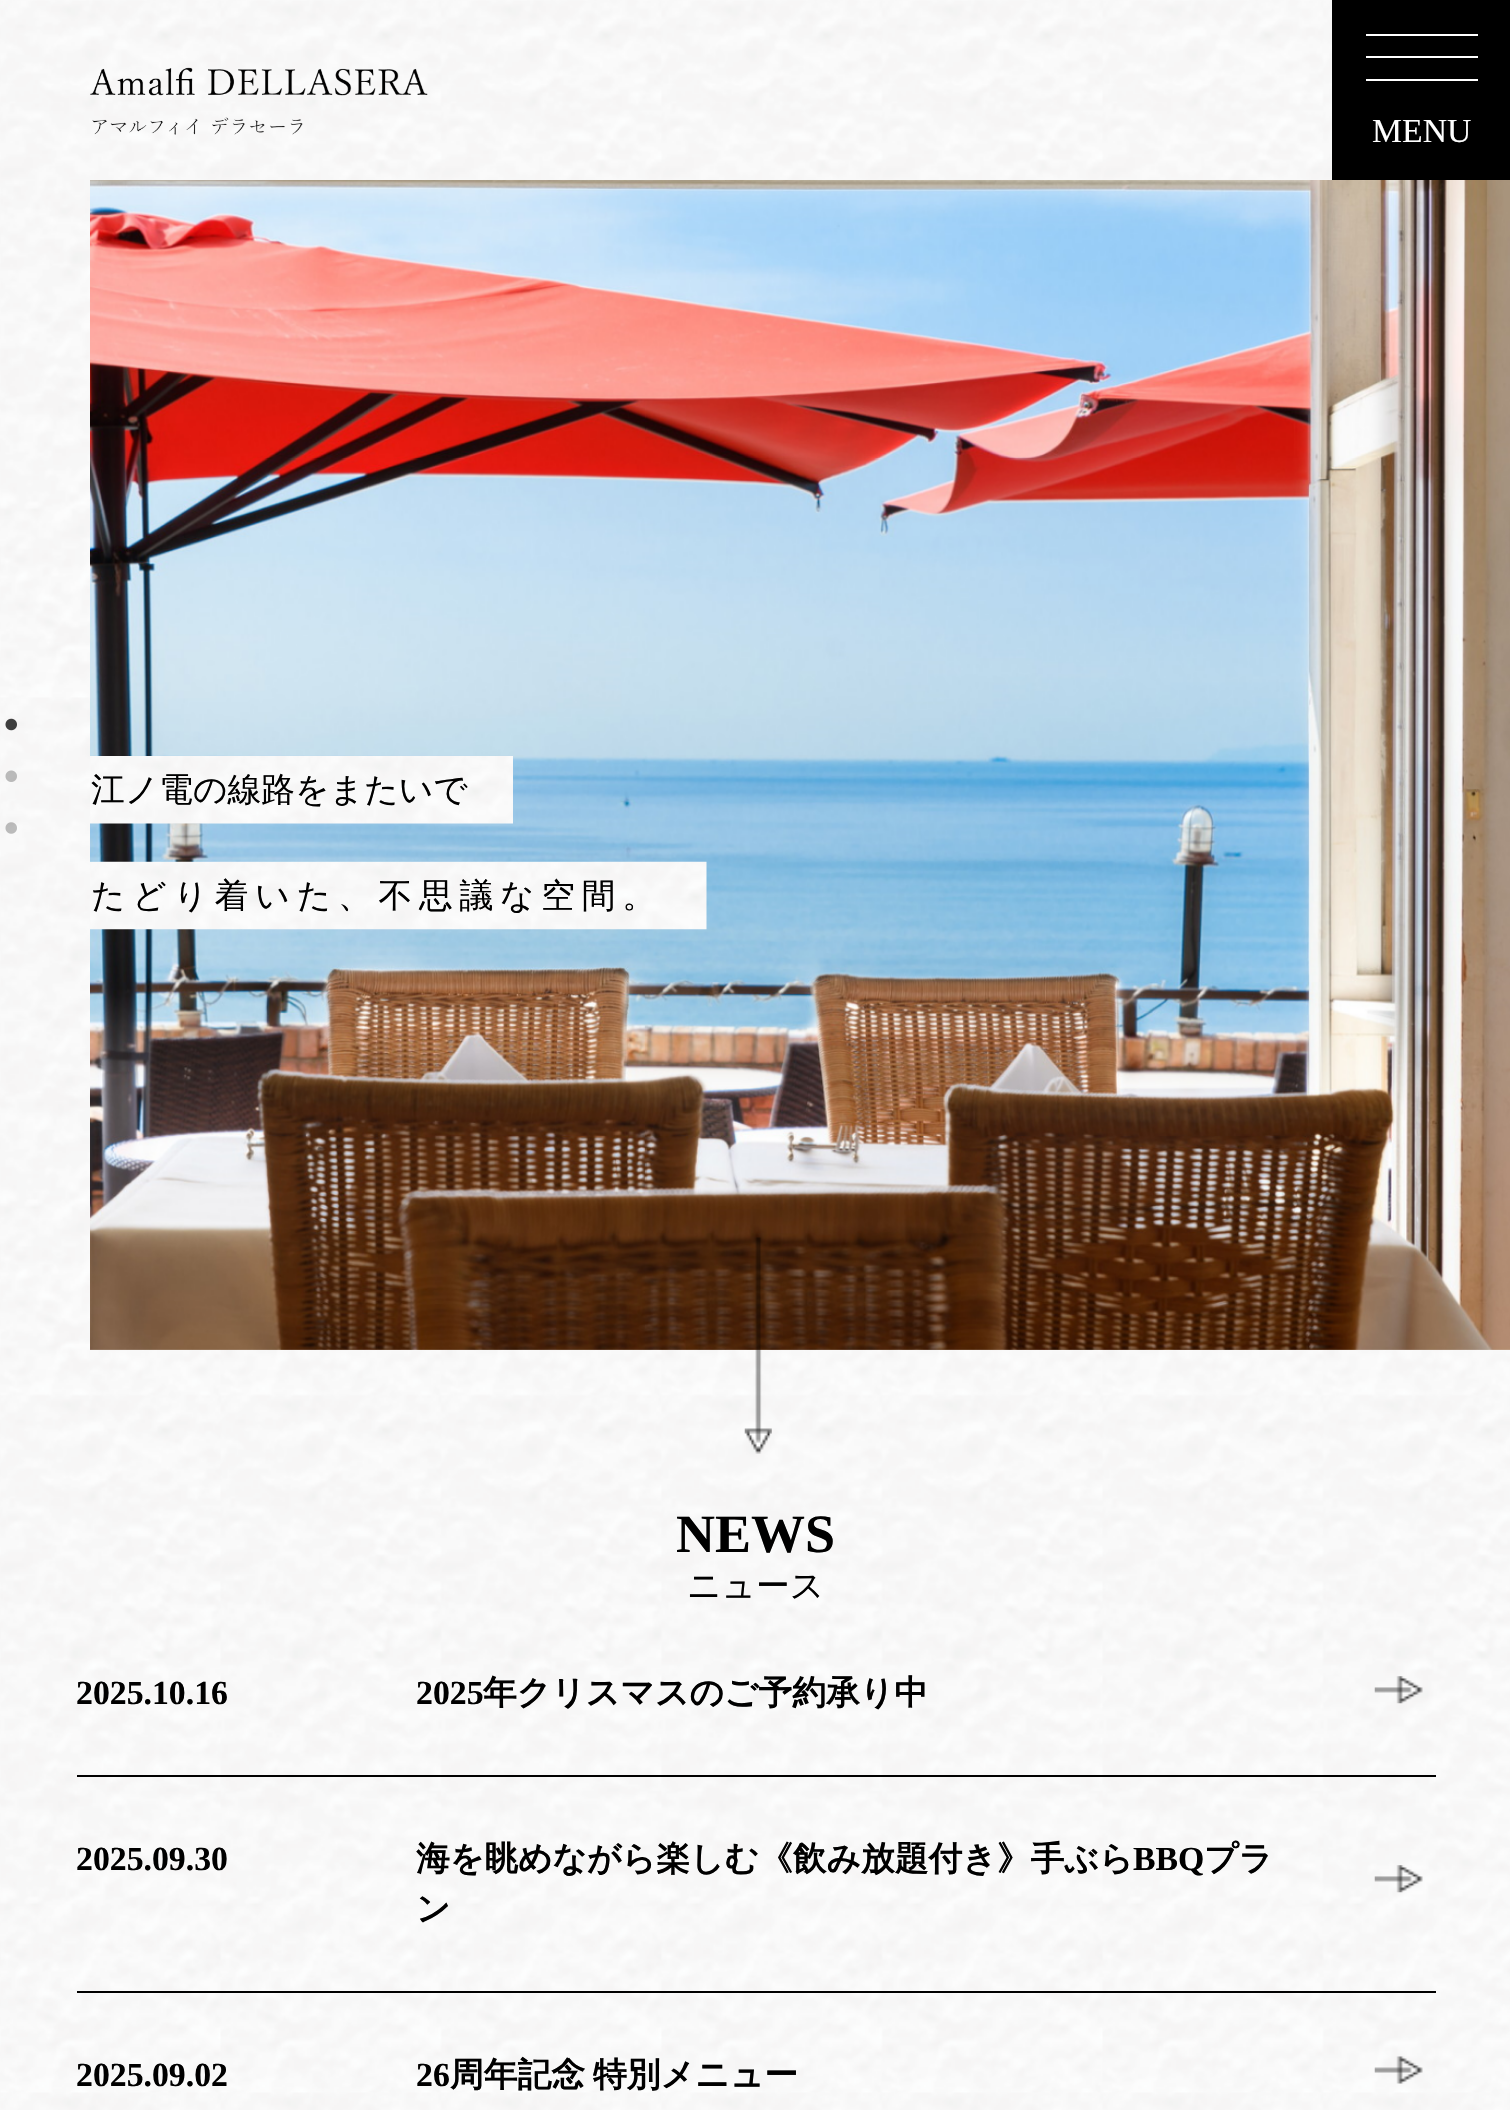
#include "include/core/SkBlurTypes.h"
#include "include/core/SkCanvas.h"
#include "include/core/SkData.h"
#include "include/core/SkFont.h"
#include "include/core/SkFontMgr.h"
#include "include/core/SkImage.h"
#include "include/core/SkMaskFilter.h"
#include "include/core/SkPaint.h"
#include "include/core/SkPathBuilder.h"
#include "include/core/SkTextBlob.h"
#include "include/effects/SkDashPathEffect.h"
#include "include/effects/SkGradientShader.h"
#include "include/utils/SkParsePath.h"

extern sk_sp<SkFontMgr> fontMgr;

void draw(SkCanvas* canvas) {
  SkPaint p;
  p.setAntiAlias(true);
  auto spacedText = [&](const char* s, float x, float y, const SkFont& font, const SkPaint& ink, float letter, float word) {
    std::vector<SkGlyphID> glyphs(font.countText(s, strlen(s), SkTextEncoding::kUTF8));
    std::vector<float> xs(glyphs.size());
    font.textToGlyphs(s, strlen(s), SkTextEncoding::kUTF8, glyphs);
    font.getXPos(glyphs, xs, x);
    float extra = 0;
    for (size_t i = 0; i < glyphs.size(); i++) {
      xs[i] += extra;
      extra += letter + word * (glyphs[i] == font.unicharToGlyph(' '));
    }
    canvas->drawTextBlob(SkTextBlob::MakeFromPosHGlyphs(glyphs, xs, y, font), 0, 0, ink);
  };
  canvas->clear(SK_ColorWHITE);
  canvas->drawImageRect(SkImages::DeferredFromEncodedData(SkData::MakeFromFileName("images/1.png")), SkRect::MakeLTRB(0, 0, 1510, 2110), SkSamplingOptions());
  canvas->drawImageRect(SkImages::DeferredFromEncodedData(SkData::MakeFromFileName("images/2.png")), SkRect::MakeLTRB(90, 67, 428, 135), SkSamplingOptions());
  p.setColor(SK_ColorBLACK);
  canvas->drawRect(SkRect::MakeLTRB(1332, 0, 1510, 180), p);
  p.setColor(SK_ColorWHITE);
  canvas->drawRect(SkRect::MakeLTRB(1366, 34, 1478, 36), p);
  canvas->drawRect(SkRect::MakeLTRB(1366, 79, 1478, 81), p);
  canvas->drawRect(SkRect::MakeLTRB(1366, 56, 1478, 58), p);
  canvas->drawImageRect(SkImages::DeferredFromEncodedData(SkData::MakeFromFileName("images/3.png")), SkRect::MakeLTRB(5, 718, 17, 731), SkSamplingOptions());
  canvas->drawImageRect(SkImages::DeferredFromEncodedData(SkData::MakeFromFileName("images/4.png")), SkRect::MakeLTRB(5, 770, 17, 782), SkSamplingOptions());
  canvas->drawImageRect(SkImages::DeferredFromEncodedData(SkData::MakeFromFileName("images/5.png")), SkRect::MakeLTRB(5, 822, 17, 834), SkSamplingOptions());
  canvas->drawImageRect(SkImages::DeferredFromEncodedData(SkData::MakeFromFileName("images/6.png")), SkRect::MakeLTRB(90, 180, 1510, 1350), SkSamplingOptions());
  canvas->drawImageRect(SkImages::DeferredFromEncodedData(SkData::MakeFromFileName("images/7.png")), SkRect::MakeLTRB(744, 1237, 772, 1454), SkSamplingOptions());
  canvas->drawImageRect(SkImages::DeferredFromEncodedData(SkData::MakeFromFileName("images/8.png")), SkRect::MakeLTRB(90, 756, 513, 824), SkSamplingOptions());
  canvas->drawImageRect(SkImages::DeferredFromEncodedData(SkData::MakeFromFileName("images/9.png")), SkRect::MakeLTRB(90, 861, 707, 930), SkSamplingOptions());
  p.setColor(SK_ColorBLACK);
  canvas->drawRect(SkRect::MakeLTRB(77, 1775, 1436, 1777), p);
  canvas->drawImageRect(SkImages::DeferredFromEncodedData(SkData::MakeFromFileName("images/10.png")), SkRect::MakeLTRB(1374, 1676, 1423, 1704), SkSamplingOptions());
  canvas->drawRect(SkRect::MakeLTRB(77, 1991, 1436, 1993), p);
  canvas->drawImageRect(SkImages::DeferredFromEncodedData(SkData::MakeFromFileName("images/11.png")), SkRect::MakeLTRB(1374, 1865, 1423, 1893), SkSamplingOptions());
  canvas->drawImageRect(SkImages::DeferredFromEncodedData(SkData::MakeFromFileName("images/12.png")), SkRect::MakeLTRB(1374, 2056, 1423, 2084), SkSamplingOptions());
  SkFont font1(fontMgr->matchFamilyStyle("Liberation Serif", SkFontStyle::Normal()), 33.75f);
  font1.setSubpixel(true);
  p.setColor(SK_ColorWHITE);
  canvas->drawString("MENU", 1372, 142, font1, p);
  SkFont font2(fontMgr->matchFamilyStyle("WenQuanYi Zen Hei", SkFontStyle(500, SkFontStyle::kNormal_Width, SkFontStyle::kUpright_Slant)), 33.75f);
  font2.setSubpixel(true);
  p.setColor(SK_ColorBLACK);
  canvas->drawString("江ノ電の線路をまたいで", 91, 801, font2, p);
  spacedText("たどり着いた、不思議な空間。", 91, 907, font2, p, 6.75f, 0);
  SkFont font3(fontMgr->matchFamilyStyle("Liberation Serif", SkFontStyle::Bold()), 54);
  font3.setSubpixel(true);
  canvas->drawString("NEWS", 676, 1552, font3, p);
  canvas->drawString("ニュース", 687, 1597, font2, p);
  SkFont font4(fontMgr->matchFamilyStyle("Liberation Serif", SkFontStyle::Bold()), 33.75f);
  font4.setSubpixel(true);
  canvas->drawString("2025.10.16", 76, 1704, font4, p);
  canvas->drawString("2025", 416, 1704, font4, p);
  SkFont font5(fontMgr->matchFamilyStyle("WenQuanYi Zen Hei", SkFontStyle::Bold()), 33.75f);
  font5.setSubpixel(true);
  canvas->drawString("年クリスマスのご予約承り中", 483, 1704, font5, p);
  canvas->drawString("2025.09.30", 76, 1870, font4, p);
  canvas->drawString("海を眺めながら楽しむ《飲み放題付き》手ぶら", 416, 1870, font5, p);
  canvas->drawString("BBQ", 1133, 1870, font4, p);
  canvas->drawString("プラ", 1204, 1870, font5, p);
  canvas->drawString("ン", 416, 1920, font5, p);
  canvas->drawString("2025.09.02", 76, 2086, font4, p);
  canvas->drawString("26", 416, 2086, font4, p);
  spacedText("周年記念 特別メニュー", 450, 2086, font5, p, 0, -2);
}
